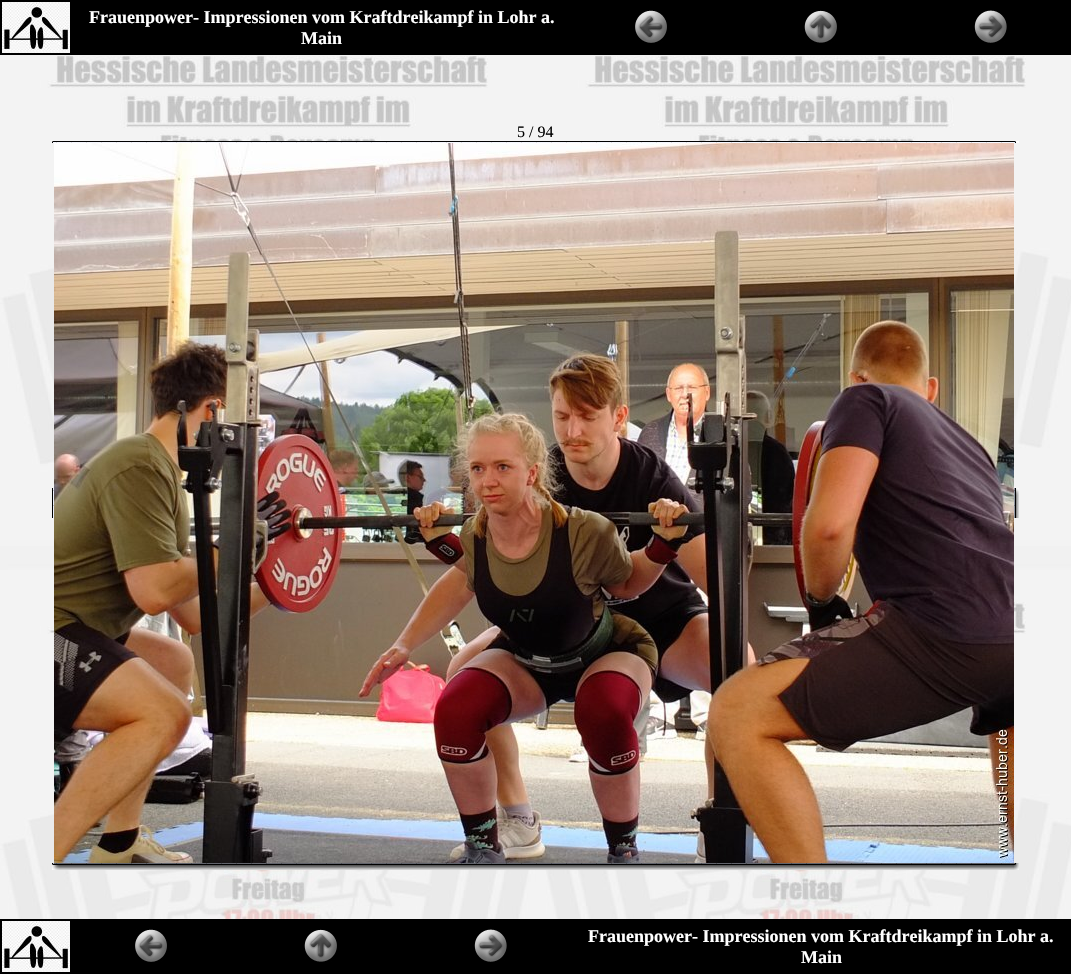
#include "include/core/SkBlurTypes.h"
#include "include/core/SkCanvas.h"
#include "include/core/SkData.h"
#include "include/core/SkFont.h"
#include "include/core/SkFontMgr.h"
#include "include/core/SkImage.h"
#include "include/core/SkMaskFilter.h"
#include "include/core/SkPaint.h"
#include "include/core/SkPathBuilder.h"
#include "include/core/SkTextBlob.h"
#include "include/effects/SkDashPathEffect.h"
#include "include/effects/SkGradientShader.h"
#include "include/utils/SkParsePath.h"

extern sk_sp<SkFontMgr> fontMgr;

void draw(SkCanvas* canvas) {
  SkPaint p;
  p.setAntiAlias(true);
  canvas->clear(SK_ColorWHITE);
  canvas->drawImageRect(SkImages::DeferredFromEncodedData(SkData::MakeFromFileName("images/1.png")), SkRect::MakeLTRB(0, 55, 1071, 919), SkSamplingOptions());
  p.setColor(SK_ColorBLACK);
  canvas->drawRect(SkRect::MakeLTRB(0, 0, 1071, 55), p);
  canvas->drawImageRect(SkImages::DeferredFromEncodedData(SkData::MakeFromFileName("images/2.png")), SkRect::MakeLTRB(2, 2, 70, 53), SkSamplingOptions());
  canvas->drawImageRect(SkImages::DeferredFromEncodedData(SkData::MakeFromFileName("images/3.png")), SkRect::MakeLTRB(635, 10, 667, 43), SkSamplingOptions());
  canvas->drawImageRect(SkImages::DeferredFromEncodedData(SkData::MakeFromFileName("images/4.png")), SkRect::MakeLTRB(804, 10, 837, 43), SkSamplingOptions());
  canvas->drawImageRect(SkImages::DeferredFromEncodedData(SkData::MakeFromFileName("images/5.png")), SkRect::MakeLTRB(974, 10, 1007, 43), SkSamplingOptions());
  canvas->drawImageRect(SkImages::DeferredFromEncodedData(SkData::MakeFromFileName("images/6.png")), SkRect::MakeLTRB(52, 141, 54, 143), SkSamplingOptions());
  canvas->drawImageRect(SkImages::DeferredFromEncodedData(SkData::MakeFromFileName("images/7.png")), SkRect::MakeLTRB(54, 141, 1014, 143), SkSamplingOptions());
  canvas->drawImageRect(SkImages::DeferredFromEncodedData(SkData::MakeFromFileName("images/8.png")), SkRect::MakeLTRB(1014, 141, 1019, 143), SkSamplingOptions());
  canvas->drawImageRect(SkImages::DeferredFromEncodedData(SkData::MakeFromFileName("images/9.png")), SkRect::MakeLTRB(52, 488, 54, 518), SkSamplingOptions());
  canvas->drawImageRect(SkImages::DeferredFromEncodedData(SkData::MakeFromFileName("images/10.png")), SkRect::MakeLTRB(54, 143, 1014, 863), SkSamplingOptions());
  canvas->drawImageRect(SkImages::DeferredFromEncodedData(SkData::MakeFromFileName("images/11.png")), SkRect::MakeLTRB(1014, 488, 1019, 518), SkSamplingOptions());
  canvas->drawImageRect(SkImages::DeferredFromEncodedData(SkData::MakeFromFileName("images/12.png")), SkRect::MakeLTRB(1016, 488, 1019, 495), SkSamplingOptions());
  canvas->drawImageRect(SkImages::DeferredFromEncodedData(SkData::MakeFromFileName("images/13.png")), SkRect::MakeLTRB(52, 863, 54, 870), SkSamplingOptions());
  canvas->drawImageRect(SkImages::DeferredFromEncodedData(SkData::MakeFromFileName("images/14.png")), SkRect::MakeLTRB(54, 863, 1014, 870), SkSamplingOptions());
  canvas->drawImageRect(SkImages::DeferredFromEncodedData(SkData::MakeFromFileName("images/15.png")), SkRect::MakeLTRB(54, 865, 59, 870), SkSamplingOptions());
  canvas->drawImageRect(SkImages::DeferredFromEncodedData(SkData::MakeFromFileName("images/16.png")), SkRect::MakeLTRB(1014, 863, 1019, 870), SkSamplingOptions());
  canvas->drawRect(SkRect::MakeLTRB(0, 919, 1071, 974), p);
  canvas->drawImageRect(SkImages::DeferredFromEncodedData(SkData::MakeFromFileName("images/2.png")), SkRect::MakeLTRB(2, 921, 70, 972), SkSamplingOptions());
  canvas->drawImageRect(SkImages::DeferredFromEncodedData(SkData::MakeFromFileName("images/3.png")), SkRect::MakeLTRB(135, 929, 167, 962), SkSamplingOptions());
  canvas->drawImageRect(SkImages::DeferredFromEncodedData(SkData::MakeFromFileName("images/4.png")), SkRect::MakeLTRB(304, 929, 337, 962), SkSamplingOptions());
  canvas->drawImageRect(SkImages::DeferredFromEncodedData(SkData::MakeFromFileName("images/5.png")), SkRect::MakeLTRB(474, 929, 507, 962), SkSamplingOptions());
  SkFont font1(fontMgr->matchFamilyStyle("Liberation Serif", SkFontStyle::Bold()), 18);
  font1.setSubpixel(true);
  p.setColor(SK_ColorWHITE);
  canvas->drawString("Frauenpower- Impressionen vom Kraftdreikampf in Lohr a.", 89, 23, font1, p);
  canvas->drawString("Main", 301, 44, font1, p);
  SkFont font2(fontMgr->matchFamilyStyle("Liberation Serif", SkFontStyle::Normal()), 16);
  font2.setSubpixel(true);
  p.setColor(SK_ColorBLACK);
  canvas->drawString("5 / 94", 517, 137, font2, p);
  p.setColor(SK_ColorWHITE);
  canvas->drawString("Frauenpower- Impressionen vom Kraftdreikampf in Lohr a.", 588, 942, font1, p);
  canvas->drawString("Main", 801, 963, font1, p);
}
